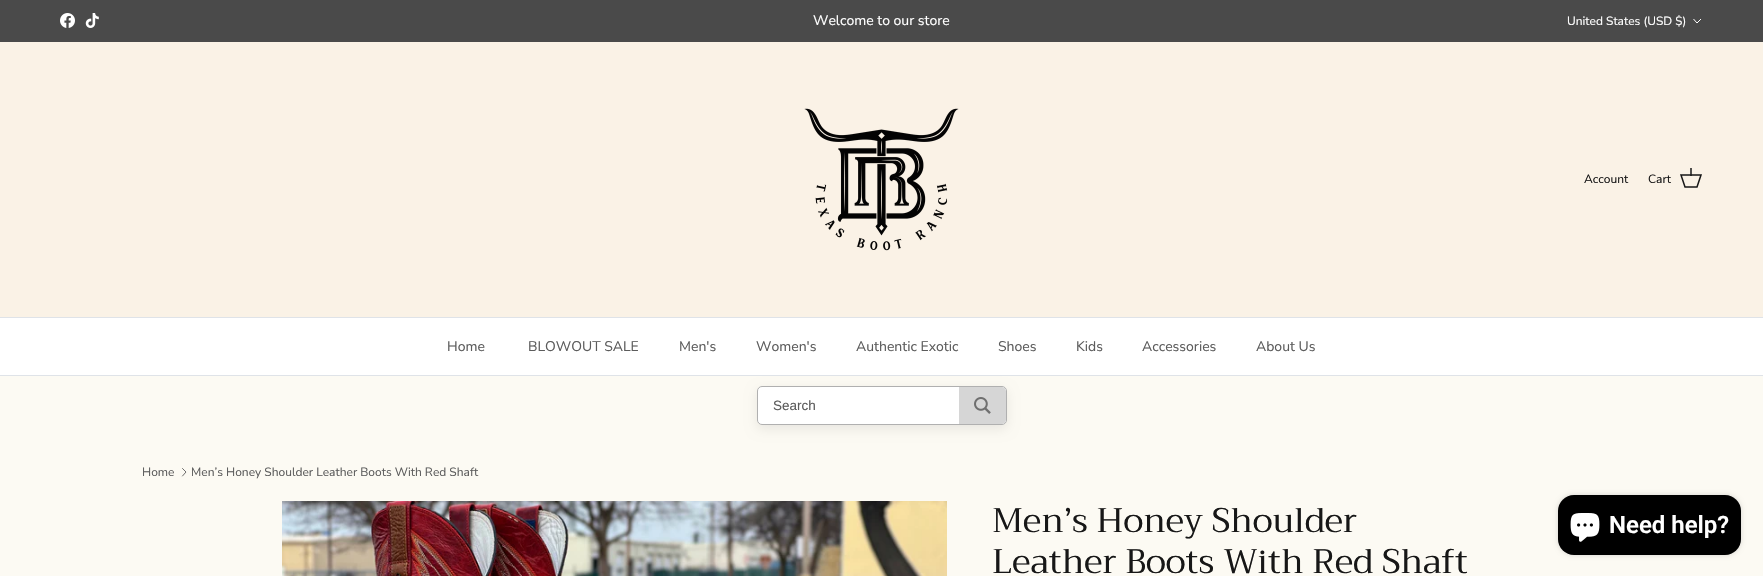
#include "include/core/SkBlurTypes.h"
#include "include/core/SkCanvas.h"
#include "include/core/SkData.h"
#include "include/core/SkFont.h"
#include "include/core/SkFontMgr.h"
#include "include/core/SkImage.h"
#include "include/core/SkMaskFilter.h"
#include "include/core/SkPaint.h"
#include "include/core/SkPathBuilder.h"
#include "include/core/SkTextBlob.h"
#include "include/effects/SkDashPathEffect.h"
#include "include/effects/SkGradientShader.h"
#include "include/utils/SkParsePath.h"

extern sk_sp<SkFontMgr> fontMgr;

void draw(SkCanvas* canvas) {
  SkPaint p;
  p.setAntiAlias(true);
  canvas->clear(SkColorSetRGB(252, 250, 243));
  p.setColor(SkColorSetRGB(74, 74, 74));
  canvas->drawRect(SkRect::MakeLTRB(0, 0, 1763, 42), p);
  canvas->drawImageRect(SkImages::DeferredFromEncodedData(SkData::MakeFromFileName("images/1.png")), SkRect::MakeLTRB(60, 13, 75, 28), SkSamplingOptions());
  canvas->drawImageRect(SkImages::DeferredFromEncodedData(SkData::MakeFromFileName("images/2.png")), SkRect::MakeLTRB(85, 13, 99, 28), SkSamplingOptions());
  p.setStyle(SkPaint::kStroke_Style);
  p.setStrokeWidth(1);
  p.setColor(SK_ColorWHITE);
  canvas->drawPath(SkPathBuilder().moveTo(1701, 19).lineTo(1697, 23).lineTo(1693.5f, 19).detach(), p);
  p.setStyle(SkPaint::kFill_Style);
  p.setColor(SkColorSetRGB(250, 242, 230));
  canvas->drawRect(SkRect::MakeLTRB(0, 42, 1763, 317), p);
  p.setColor(SkColorSetRGB(223, 227, 232));
  canvas->drawRect(SkRect::MakeLTRB(0, 317, 1763, 318), p);
  canvas->drawImageRect(SkImages::DeferredFromEncodedData(SkData::MakeFromFileName("images/3.png")), SkRect::MakeLTRB(804, 108, 959, 251), SkSamplingOptions());
  p.setStyle(SkPaint::kStroke_Style);
  p.setStrokeWidth(1.5f);
  p.setColor(SkColorSetRGB(23, 23, 23));
  canvas->drawPath(SkPathBuilder().moveTo(1681, 175).lineTo(1701, 175).lineTo(1697, 187).lineTo(1685, 187).close().detach(), p);
  p.setStyle(SkPaint::kFill_Style);
  p.setColor(SkColorSetARGB(191, 23, 23, 23));
  canvas->drawRect(SkRect::MakeLTRB(1690, 168, 1692, 176), p);
  p.setColor(SkColorSetRGB(223, 227, 232));
  canvas->drawRect(SkRect::MakeLTRB(0, 375, 1763, 376), p);
  p.setColor(SK_ColorWHITE);
  canvas->drawRect(SkRect::MakeLTRB(0, 318, 1763, 375), p);
  p.setColor(SkColorSetARGB(20, 0, 0, 0));
  p.setMaskFilter(SkMaskFilter::MakeBlur(kNormal_SkBlurStyle, 6));
  canvas->drawRoundRect(SkRect::MakeLTRB(757, 390, 1007, 429), 5, 5, p);
  p.setMaskFilter(nullptr);
  p.setColor(SK_ColorWHITE);
  canvas->drawRoundRect(SkRect::MakeLTRB(757.5f, 386.5f, 1006.5f, 424.5f), 4.5f, 4.5f, p);
  p.setStyle(SkPaint::kStroke_Style);
  p.setStrokeWidth(1);
  p.setColor(SkColorSetRGB(176, 176, 176));
  canvas->drawRoundRect(SkRect::MakeLTRB(757.5f, 386.5f, 1006.5f, 424.5f), 4.5f, 4.5f, p);
  p.setStyle(SkPaint::kFill_Style);
  p.setColor(SkColorSetRGB(214, 214, 214));
  canvas->drawPath(SkPathBuilder().moveTo(959, 387).lineTo(1002, 387).cubicTo(1004, 387, 1006, 389, 1006, 391).lineTo(1006, 420).cubicTo(1006, 422, 1004, 424, 1002, 424).lineTo(959, 424).close().detach(), p);
  canvas->drawImageRect(SkImages::DeferredFromEncodedData(SkData::MakeFromFileName("images/4.png")), SkRect::MakeLTRB(974, 397, 991, 414), SkSamplingOptions());
  p.setStyle(SkPaint::kStroke_Style);
  p.setStrokeWidth(0.9f);
  p.setStrokeCap(SkPaint::kRound_Cap);
  p.setStrokeJoin(SkPaint::kRound_Join);
  p.setColor(SkColorSetRGB(92, 92, 92));
  canvas->drawPath(SkPathBuilder().moveTo(182.5f, 476).lineTo(186, 472).lineTo(182.5f, 468.5f).detach(), p);
  canvas->drawImageRect(SkImages::DeferredFromEncodedData(SkData::MakeFromFileName("images/5.png")), SkRect::MakeLTRB(282, 501, 947, 576), SkSamplingOptions());
  p.setStyle(SkPaint::kFill_Style);
  p.setColor(SkColorSetARGB(38, 0, 0, 0));
  p.setMaskFilter(SkMaskFilter::MakeBlur(kNormal_SkBlurStyle, 2.5f));
  canvas->drawRoundRect(SkRect::MakeLTRB(1558, 495, 1741, 555), 16, 16, p);
  p.setMaskFilter(nullptr);
  p.setColor(SK_ColorBLACK);
  canvas->drawRoundRect(SkRect::MakeLTRB(1558, 495, 1741, 555), 16, 16, p);
  canvas->drawImageRect(SkImages::DeferredFromEncodedData(SkData::MakeFromFileName("images/6.png")), SkRect::MakeLTRB(1570, 513, 1600, 542), SkSamplingOptions());
  SkFont font1(fontMgr->matchFamilyStyle("Nunito Sans", SkFontStyle::Normal()), 14);
  font1.setSubpixel(true);
  p.setColor(SK_ColorWHITE);
  canvas->drawString("Welcome to our store", 813, 25, font1, p);
  SkFont font2(fontMgr->matchFamilyStyle("Nunito Sans", SkFontStyle::Normal()), 12);
  font2.setSubpixel(true);
  canvas->drawString("United States (USD $)", 1567, 25, font2, p);
  p.setColor(SkColorSetRGB(23, 23, 23));
  canvas->drawString("Account", 1584, 183, font2, p);
  canvas->drawString("Cart", 1648, 183, font2, p);
  p.setColor(SkColorSetRGB(92, 92, 92));
  canvas->drawString("Home", 447, 351, font1, p);
  canvas->drawString("BLOWOUT SALE", 528, 351, font1, p);
  canvas->drawString("Men's", 679, 351, font1, p);
  canvas->drawString("Women's", 756, 351, font1, p);
  canvas->drawString("Authentic Exotic", 856, 351, font1, p);
  canvas->drawString("Shoes", 998, 351, font1, p);
  canvas->drawString("Kids", 1076, 351, font1, p);
  canvas->drawString("Accessories", 1142, 351, font1, p);
  canvas->drawString("About Us", 1256, 351, font1, p);
  SkFont font3(fontMgr->matchFamilyStyle("Liberation Sans", SkFontStyle::Normal()), 13.5f);
  font3.setSubpixel(true);
  canvas->drawString("Search", 773, 410, font3, p);
  canvas->drawString("Home", 142, 476, font2, p);
  canvas->drawString("Men’s Honey Shoulder Leather Boots With Red Shaft", 191, 476, font2, p);
  SkFont font4(fontMgr->matchFamilyStyle("Trirong", SkFontStyle::Normal()), 34);
  font4.setSubpixel(true);
  p.setColor(SkColorSetRGB(23, 23, 23));
  canvas->drawString("Men’s Honey Shoulder", 992, 532, font4, p);
  canvas->drawString("Leather Boots With Red Shaft", 992, 573, font4, p);
  SkFont font5(fontMgr->matchFamilyStyle("Roboto", SkFontStyle(600, SkFontStyle::kNormal_Width, SkFontStyle::kUpright_Slant)), 24);
  font5.setSubpixel(true);
  p.setColor(SK_ColorWHITE);
  canvas->drawString("Need help?", 1609, 533, font5, p);
}
